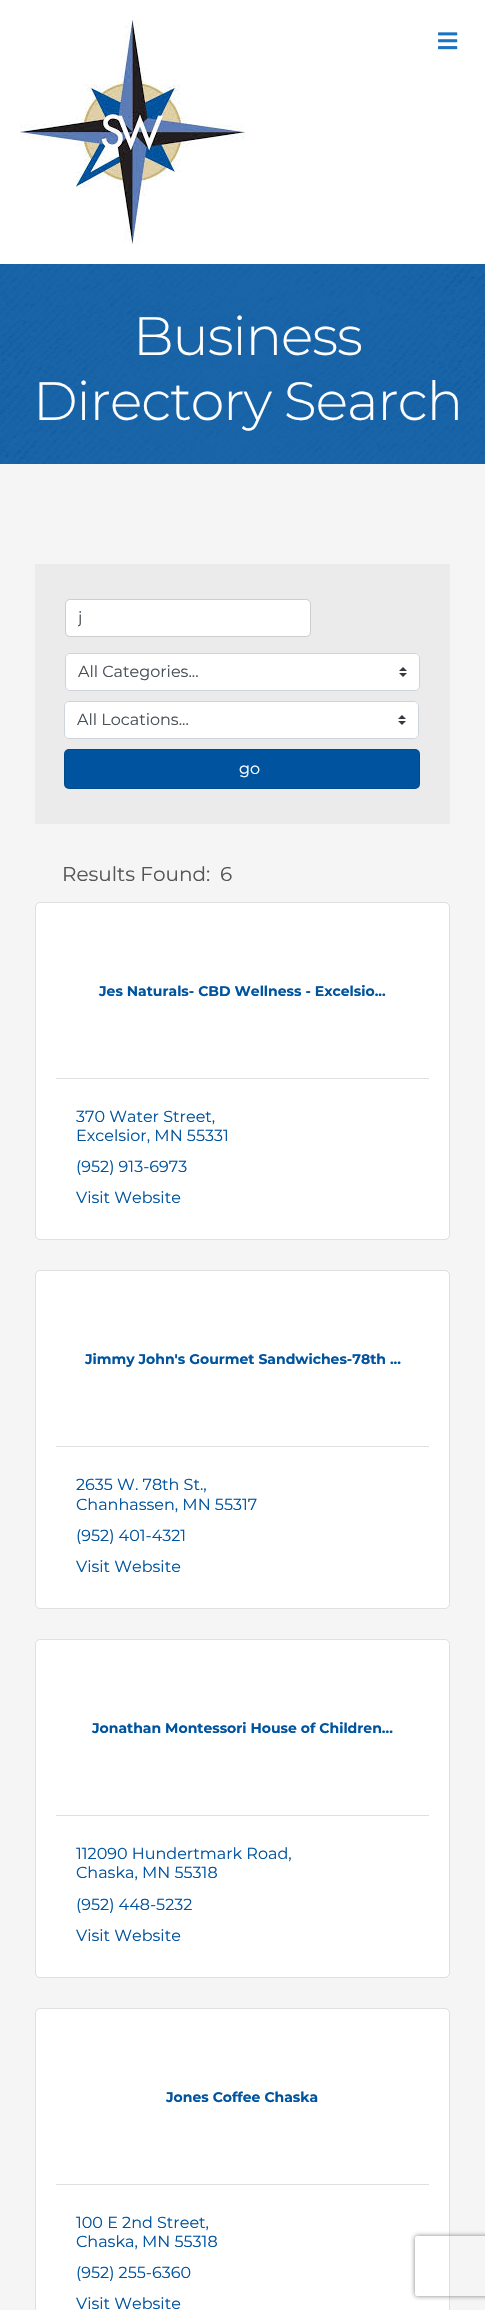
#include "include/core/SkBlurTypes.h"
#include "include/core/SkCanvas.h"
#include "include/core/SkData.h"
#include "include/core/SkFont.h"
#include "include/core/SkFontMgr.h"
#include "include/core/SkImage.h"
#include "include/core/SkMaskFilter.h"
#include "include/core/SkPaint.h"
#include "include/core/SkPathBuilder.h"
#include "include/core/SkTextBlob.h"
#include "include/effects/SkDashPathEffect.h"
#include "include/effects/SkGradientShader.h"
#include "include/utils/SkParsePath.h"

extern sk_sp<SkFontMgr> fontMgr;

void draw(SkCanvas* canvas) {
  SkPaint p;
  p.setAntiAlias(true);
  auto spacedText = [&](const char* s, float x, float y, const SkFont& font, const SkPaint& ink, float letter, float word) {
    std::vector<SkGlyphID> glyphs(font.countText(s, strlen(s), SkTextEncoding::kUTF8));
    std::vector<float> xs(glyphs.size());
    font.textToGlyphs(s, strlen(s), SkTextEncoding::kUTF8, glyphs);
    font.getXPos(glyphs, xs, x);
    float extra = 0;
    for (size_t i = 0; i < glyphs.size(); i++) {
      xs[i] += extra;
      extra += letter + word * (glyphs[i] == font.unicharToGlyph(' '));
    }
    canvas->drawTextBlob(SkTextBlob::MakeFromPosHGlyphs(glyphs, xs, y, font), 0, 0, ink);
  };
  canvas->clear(SK_ColorWHITE);
  canvas->drawImageRect(SkImages::DeferredFromEncodedData(SkData::MakeFromFileName("images/1.png")), SkRect::MakeLTRB(20, 20, 245, 244), SkSamplingOptions());
  canvas->drawImageRect(SkImages::DeferredFromEncodedData(SkData::MakeFromFileName("images/2.png")), SkRect::MakeLTRB(438, 32, 458, 50), SkSamplingOptions());
  p.setColor(SkColorSetRGB(245, 245, 245));
  canvas->drawRect(SkRect::MakeLTRB(0, 464, 485, 2310), p);
  canvas->drawImageRect(SkImages::DeferredFromEncodedData(SkData::MakeFromFileName("images/3.png")), SkRect::MakeLTRB(0, 264, 485, 464), SkSamplingOptions());
  p.setColor(SkColorSetRGB(235, 235, 235));
  canvas->drawRect(SkRect::MakeLTRB(35, 564, 450, 824), p);
  p.setColor(SK_ColorWHITE);
  canvas->drawRoundRect(SkRect::MakeLTRB(66, 600, 310, 636), 4, 4, p);
  p.setStyle(SkPaint::kStroke_Style);
  p.setStrokeWidth(1);
  p.setColor(SkColorSetARGB(31, 0, 0, 0));
  canvas->drawRoundRect(SkRect::MakeLTRB(65.5f, 599.5f, 310.5f, 636.5f), 4.5f, 4.5f, p);
  p.setStyle(SkPaint::kFill_Style);
  p.setColor(SK_ColorWHITE);
  canvas->drawRoundRect(SkRect::MakeLTRB(65, 653, 420, 691), 5, 5, p);
  canvas->drawImageRect(SkImages::DeferredFromEncodedData(SkData::MakeFromFileName("images/4.png")), SkRect::MakeLTRB(399, 667, 407, 677), SkSamplingOptions());
  p.setStyle(SkPaint::kStroke_Style);
  p.setColor(SkColorSetRGB(206, 212, 218));
  canvas->drawRoundRect(SkRect::MakeLTRB(65.5f, 653.5f, 419.5f, 690.5f), 4.5f, 4.5f, p);
  p.setStyle(SkPaint::kFill_Style);
  p.setColor(SK_ColorWHITE);
  canvas->drawRoundRect(SkRect::MakeLTRB(64, 701, 419, 739), 5, 5, p);
  canvas->drawImageRect(SkImages::DeferredFromEncodedData(SkData::MakeFromFileName("images/4.png")), SkRect::MakeLTRB(398, 715, 406, 725), SkSamplingOptions());
  p.setStyle(SkPaint::kStroke_Style);
  p.setColor(SkColorSetRGB(206, 212, 218));
  canvas->drawRoundRect(SkRect::MakeLTRB(64.5f, 701.5f, 418.5f, 738.5f), 4.5f, 4.5f, p);
  p.setStyle(SkPaint::kFill_Style);
  p.setColor(SkColorSetRGB(0, 84, 159));
  canvas->drawRoundRect(SkRect::MakeLTRB(64, 749, 420, 789), 5, 5, p);
  p.setStyle(SkPaint::kStroke_Style);
  p.setColor(SkColorSetARGB(31, 0, 0, 0));
  canvas->drawRoundRect(SkRect::MakeLTRB(64.5f, 749.5f, 419.5f, 788.5f), 4.5f, 4.5f, p);
  p.setStyle(SkPaint::kFill_Style);
  p.setColor(SK_ColorWHITE);
  canvas->drawRoundRect(SkRect::MakeLTRB(35, 902, 450, 1240), 5, 5, p);
  p.setStyle(SkPaint::kStroke_Style);
  p.setColor(SkColorSetARGB(31, 0, 0, 0));
  canvas->drawRoundRect(SkRect::MakeLTRB(35.5f, 902.5f, 449.5f, 1239.5f), 4.5f, 4.5f, p);
  p.setStyle(SkPaint::kFill_Style);
  p.setColor(SkColorSetRGB(223, 223, 223));
  canvas->drawRect(SkRect::MakeLTRB(56, 1078, 429, 1079), p);
  p.setColor(SK_ColorWHITE);
  canvas->drawRoundRect(SkRect::MakeLTRB(35, 1270, 450, 1609), 5, 5, p);
  p.setStyle(SkPaint::kStroke_Style);
  p.setColor(SkColorSetARGB(31, 0, 0, 0));
  canvas->drawRoundRect(SkRect::MakeLTRB(35.5f, 1270.5f, 449.5f, 1608.5f), 4.5f, 4.5f, p);
  p.setStyle(SkPaint::kFill_Style);
  p.setColor(SkColorSetRGB(223, 223, 223));
  canvas->drawRect(SkRect::MakeLTRB(56, 1446, 429, 1447), p);
  p.setColor(SK_ColorWHITE);
  canvas->drawRoundRect(SkRect::MakeLTRB(35, 1639, 450, 1978), 5, 5, p);
  p.setStyle(SkPaint::kStroke_Style);
  p.setColor(SkColorSetARGB(31, 0, 0, 0));
  canvas->drawRoundRect(SkRect::MakeLTRB(35.5f, 1639.5f, 449.5f, 1977.5f), 4.5f, 4.5f, p);
  p.setStyle(SkPaint::kFill_Style);
  p.setColor(SkColorSetRGB(223, 223, 223));
  canvas->drawRect(SkRect::MakeLTRB(56, 1815, 429, 1816), p);
  p.setColor(SK_ColorWHITE);
  canvas->drawRoundRect(SkRect::MakeLTRB(35, 2008, 450, 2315), 5, 5, p);
  p.setStyle(SkPaint::kStroke_Style);
  p.setColor(SkColorSetARGB(31, 0, 0, 0));
  canvas->drawRoundRect(SkRect::MakeLTRB(35.5f, 2008.5f, 449.5f, 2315.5f), 4.5f, 4.5f, p);
  p.setStyle(SkPaint::kFill_Style);
  p.setColor(SkColorSetRGB(223, 223, 223));
  canvas->drawRect(SkRect::MakeLTRB(56, 2184, 429, 2185), p);
  canvas->save();
  canvas->clipPath(SkPathBuilder(SkPathFillType::kEvenOdd).moveTo(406, 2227).lineTo(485, 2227).lineTo(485, 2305).lineTo(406, 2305).close().moveTo(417, 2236).lineTo(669, 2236).cubicTo(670, 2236, 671, 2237, 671, 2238).lineTo(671, 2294).cubicTo(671, 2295, 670, 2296, 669, 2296).lineTo(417, 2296).cubicTo(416, 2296, 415, 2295, 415, 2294).lineTo(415, 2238).cubicTo(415, 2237, 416, 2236, 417, 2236).close().detach(), true);
  p.setColor(SkColorSetRGB(128, 128, 128));
  p.setMaskFilter(SkMaskFilter::MakeBlur(kNormal_SkBlurStyle, 2.5f));
  canvas->drawRoundRect(SkRect::MakeLTRB(415, 2236, 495, 2296), 2, 2, p);
  p.setMaskFilter(nullptr);
  canvas->restore();
  SkFont font1(fontMgr->matchFamilyStyle("Montserrat", SkFontStyle(300, SkFontStyle::kNormal_Width, SkFontStyle::kUpright_Slant)), 54);
  font1.setSubpixel(true);
  p.setColor(SK_ColorWHITE);
  spacedText("Business", 133, 355, font1, p, -1, 0);
  spacedText("Directory Search", 33, 420, font1, p, -1, 0);
  canvas->save();
  canvas->clipRect(SkRect::MakeLTRB(78, 608, 298, 627));
  SkFont font2(fontMgr->matchFamilyStyle("Montserrat", SkFontStyle::Normal()), 16);
  font2.setSubpixel(true);
  p.setColor(SkColorSetRGB(73, 80, 87));
  canvas->drawString("j", 78, 623, font2, p);
  canvas->restore();
  canvas->drawString("All Categories...", 78, 677, font2, p);
  canvas->drawString("All Locations...", 77, 725, font2, p);
  p.setColor(SK_ColorWHITE);
  canvas->drawString("go", 239, 774, font2, p);
  SkFont font3(fontMgr->matchFamilyStyle("Montserrat", SkFontStyle::Normal()), 20);
  font3.setSubpixel(true);
  p.setColor(SkColorSetRGB(85, 85, 85));
  canvas->drawString("Results Found:", 62, 881, font3, p);
  canvas->drawString("6", 220, 881, font3, p);
  SkFont font4(fontMgr->matchFamilyStyle("Montserrat", SkFontStyle::Bold()), 14);
  font4.setSubpixel(true);
  p.setColor(SkColorSetRGB(0, 84, 159));
  canvas->drawString("Jes Naturals- CBD Wellness - Excelsio...", 99, 996, font4, p);
  canvas->drawString("370 Water Street,", 76, 1122, font2, p);
  canvas->drawString("Excelsior, MN 55331", 76, 1141, font2, p);
  canvas->drawString("(952) 913-6973", 76, 1172, font2, p);
  canvas->drawString("Visit Website", 76, 1203, font2, p);
  canvas->drawString("Jimmy John's Gourmet Sandwiches-78th ...", 85, 1364, font4, p);
  canvas->drawString("2635 W. 78th St.,", 76, 1490, font2, p);
  canvas->drawString("Chanhassen, MN 55317", 76, 1510, font2, p);
  canvas->drawString("(952) 401-4321", 76, 1541, font2, p);
  canvas->drawString("Visit Website", 76, 1572, font2, p);
  canvas->drawString("Jonathan Montessori House of Children...", 92, 1733, font4, p);
  canvas->drawString("112090 Hundertmark Road,", 76, 1859, font2, p);
  canvas->drawString("Chaska, MN 55318", 76, 1878, font2, p);
  canvas->drawString("(952) 448-5232", 76, 1910, font2, p);
  canvas->drawString("Visit Website", 76, 1941, font2, p);
  canvas->drawString("Jones Coffee Chaska", 166, 2102, font4, p);
  canvas->drawString("100 E 2nd Street,", 76, 2228, font2, p);
  canvas->drawString("Chaska, MN 55318", 76, 2247, font2, p);
  canvas->drawString("(952) 255-6360", 76, 2278, font2, p);
  canvas->drawString("Visit Website", 76, 2309, font2, p);
}
